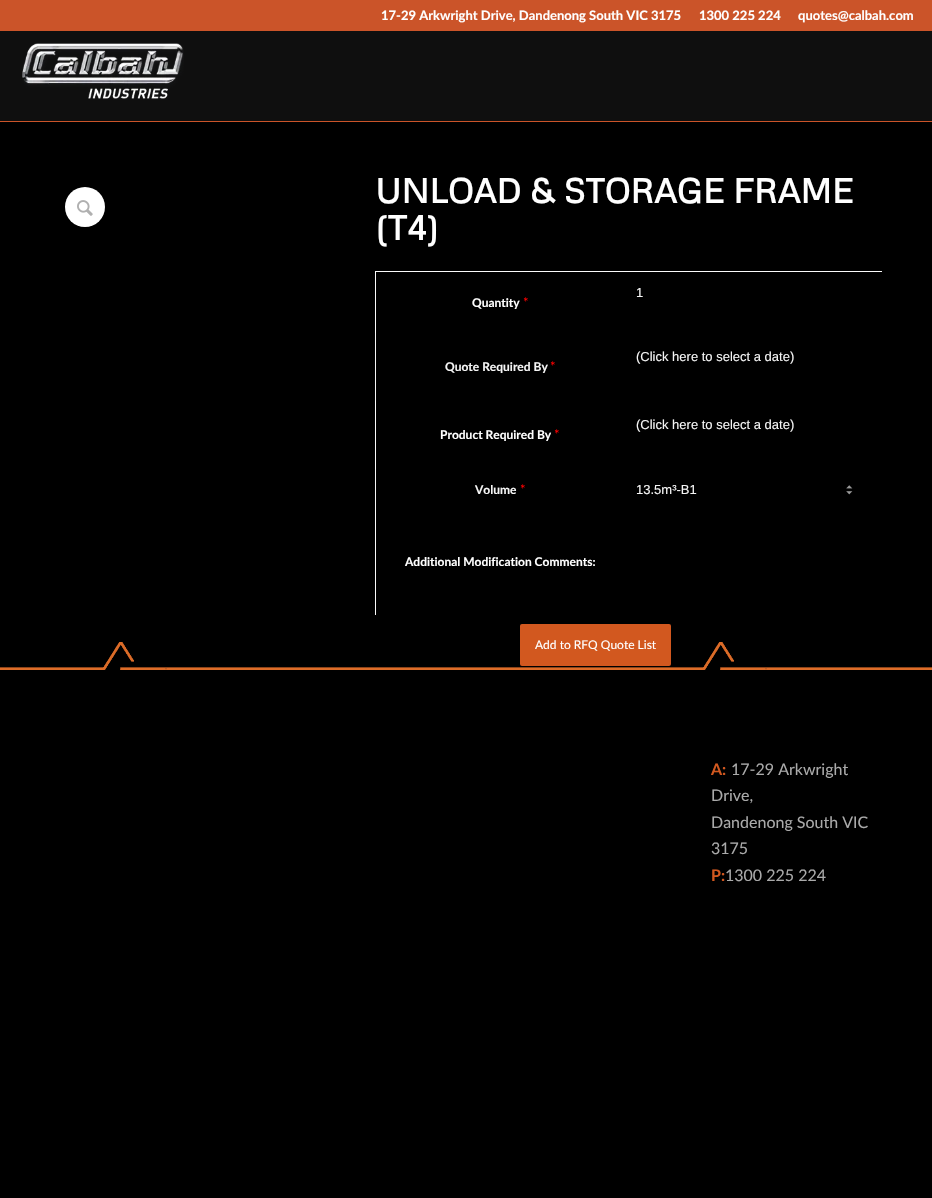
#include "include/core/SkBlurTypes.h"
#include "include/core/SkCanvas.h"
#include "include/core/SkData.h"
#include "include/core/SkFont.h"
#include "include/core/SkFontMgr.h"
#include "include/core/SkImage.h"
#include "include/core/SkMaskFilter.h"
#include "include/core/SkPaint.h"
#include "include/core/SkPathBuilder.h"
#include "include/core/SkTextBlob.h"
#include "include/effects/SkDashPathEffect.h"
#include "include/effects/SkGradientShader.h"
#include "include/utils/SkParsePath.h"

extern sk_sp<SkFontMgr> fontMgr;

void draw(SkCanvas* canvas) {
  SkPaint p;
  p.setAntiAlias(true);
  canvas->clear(SK_ColorBLACK);
  p.setColor(SkColorSetRGB(203, 84, 41));
  canvas->drawRect(SkRect::MakeLTRB(0, 0, 932, 31), p);
  p.setColor(SkColorSetRGB(15, 15, 15));
  canvas->drawRect(SkRect::MakeLTRB(0, 31, 932, 121), p);
  p.setColor(SkColorSetRGB(203, 84, 41));
  canvas->drawRect(SkRect::MakeLTRB(0, 121, 932, 122), p);
  canvas->drawImageRect(SkImages::DeferredFromEncodedData(SkData::MakeFromFileName("images/1.png")), SkRect::MakeLTRB(22, 43, 184, 99), SkSamplingOptions());
  canvas->drawImageRect(SkImages::DeferredFromEncodedData(SkData::MakeFromFileName("images/2.png")), SkRect::MakeLTRB(0, 642, 932, 670), SkSamplingOptions());
  p.setColor(SK_ColorWHITE);
  canvas->drawCircle(85, 207, 20, p);
  canvas->drawImageRect(SkImages::DeferredFromEncodedData(SkData::MakeFromFileName("images/3.png")), SkRect::MakeLTRB(77, 200, 93, 216), SkSamplingOptions());
  p.setColor(SkColorSetRGB(250, 250, 250));
  canvas->drawRect(SkRect::MakeLTRB(375, 271, 882, 272), p);
  canvas->drawRect(SkRect::MakeLTRB(375, 509, 376, 615), p);
  p.setColor(SkColorSetRGB(245, 245, 245));
  canvas->drawRect(SkRect::MakeLTRB(375, 468, 376, 510), p);
  p.setColor(SkColorSetRGB(250, 250, 250));
  canvas->drawRect(SkRect::MakeLTRB(375, 400, 376, 469), p);
  p.setColor(SkColorSetRGB(245, 245, 245));
  canvas->drawRect(SkRect::MakeLTRB(375, 332, 376, 401), p);
  p.setColor(SkColorSetRGB(250, 250, 250));
  canvas->drawRect(SkRect::MakeLTRB(375, 271, 376, 333), p);
  canvas->drawImageRect(SkImages::DeferredFromEncodedData(SkData::MakeFromFileName("images/4.png")), SkRect::MakeLTRB(846, 485, 853, 495), SkSamplingOptions());
  p.setColor(SkColorSetRGB(210, 88, 31));
  canvas->drawRoundRect(SkRect::MakeLTRB(520, 624, 671, 666), 2, 2, p);
  SkFont font1(fontMgr->matchFamilyStyle("Lato", SkFontStyle::Bold()), 13);
  font1.setSubpixel(true);
  p.setColor(SK_ColorWHITE);
  canvas->drawString("17-29 Arkwright Drive, Dandenong South VIC 3175", 381, 20, font1, p);
  canvas->drawString("1300 225 224", 699, 20, font1, p);
  canvas->drawString("quotes@calbah.com", 798, 20, font1, p);
  SkFont font2(fontMgr->matchFamilyStyle("Metrophobic", SkFontStyle::Bold()), 34);
  font2.setSubpixel(true);
  canvas->drawString("UNLOAD & STORAGE FRAME", 375, 203, font2, p);
  canvas->drawString("(T4)", 375, 240, font2, p);
  SkFont font3(fontMgr->matchFamilyStyle("Liberation Sans", SkFontStyle::Normal()), 13);
  font3.setSubpixel(true);
  p.setColor(SkColorSetRGB(245, 245, 245));
  canvas->drawString("1", 636, 297, font3, p);
  SkFont font4(fontMgr->matchFamilyStyle("Lato", SkFontStyle::Bold()), 12);
  font4.setSubpixel(true);
  p.setColor(SK_ColorWHITE);
  canvas->drawString("Quantity", 472, 307, font4, p);
  SkFont font5(fontMgr->matchFamilyStyle("Lato", SkFontStyle::Normal()), 13);
  font5.setSubpixel(true);
  p.setColor(SkColorSetRGB(255, 0, 0));
  canvas->drawString("*", 523, 307, font5, p);
  p.setColor(SkColorSetRGB(245, 245, 245));
  canvas->drawString("(Click here to select a date)", 636, 361, font3, p);
  canvas->drawString("Quote Required By", 445, 371, font4, p);
  p.setColor(SkColorSetRGB(255, 0, 0));
  canvas->drawString("*", 550, 371, font5, p);
  p.setColor(SkColorSetRGB(245, 245, 245));
  canvas->drawString("(Click here to select a date)", 636, 429, font3, p);
  p.setColor(SK_ColorWHITE);
  canvas->drawString("Product Required By", 440, 439, font4, p);
  p.setColor(SkColorSetRGB(255, 0, 0));
  canvas->drawString("*", 554, 439, font5, p);
  p.setColor(SkColorSetRGB(245, 245, 245));
  canvas->drawString("Volume", 475, 494, font4, p);
  p.setColor(SkColorSetRGB(255, 0, 0));
  canvas->drawString("*", 520, 494, font5, p);
  p.setColor(SkColorSetRGB(245, 245, 245));
  canvas->drawString("13.5m³-B1", 636, 494, font3, p);
  p.setColor(SK_ColorWHITE);
  canvas->drawString("Additional Modification Comments:", 405, 566, font4, p);
  SkFont font6(fontMgr->matchFamilyStyle("Lato", SkFontStyle::Normal()), 12);
  font6.setSubpixel(true);
  canvas->drawString("Add to RFQ Quote List", 535, 649, font6, p);
  SkFont font7(fontMgr->matchFamilyStyle("Lato", SkFontStyle::Bold()), 16);
  font7.setSubpixel(true);
  p.setColor(SkColorSetRGB(210, 88, 31));
  canvas->drawString("A:", 711, 775, font7, p);
  SkFont font8(fontMgr->matchFamilyStyle("Lato", SkFontStyle::Normal()), 16);
  font8.setSubpixel(true);
  p.setColor(SkColorSetRGB(170, 170, 170));
  canvas->drawString("17-29 Arkwright", 731, 775, font8, p);
  canvas->drawString("Drive,", 711, 801, font8, p);
  canvas->drawString("Dandenong South VIC", 711, 828, font8, p);
  canvas->drawString("3175", 711, 854, font8, p);
  p.setColor(SkColorSetRGB(210, 88, 31));
  canvas->drawString("P:", 711, 881, font7, p);
  p.setColor(SkColorSetRGB(170, 170, 170));
  canvas->drawString("1300 225 224", 725, 881, font8, p);
}
